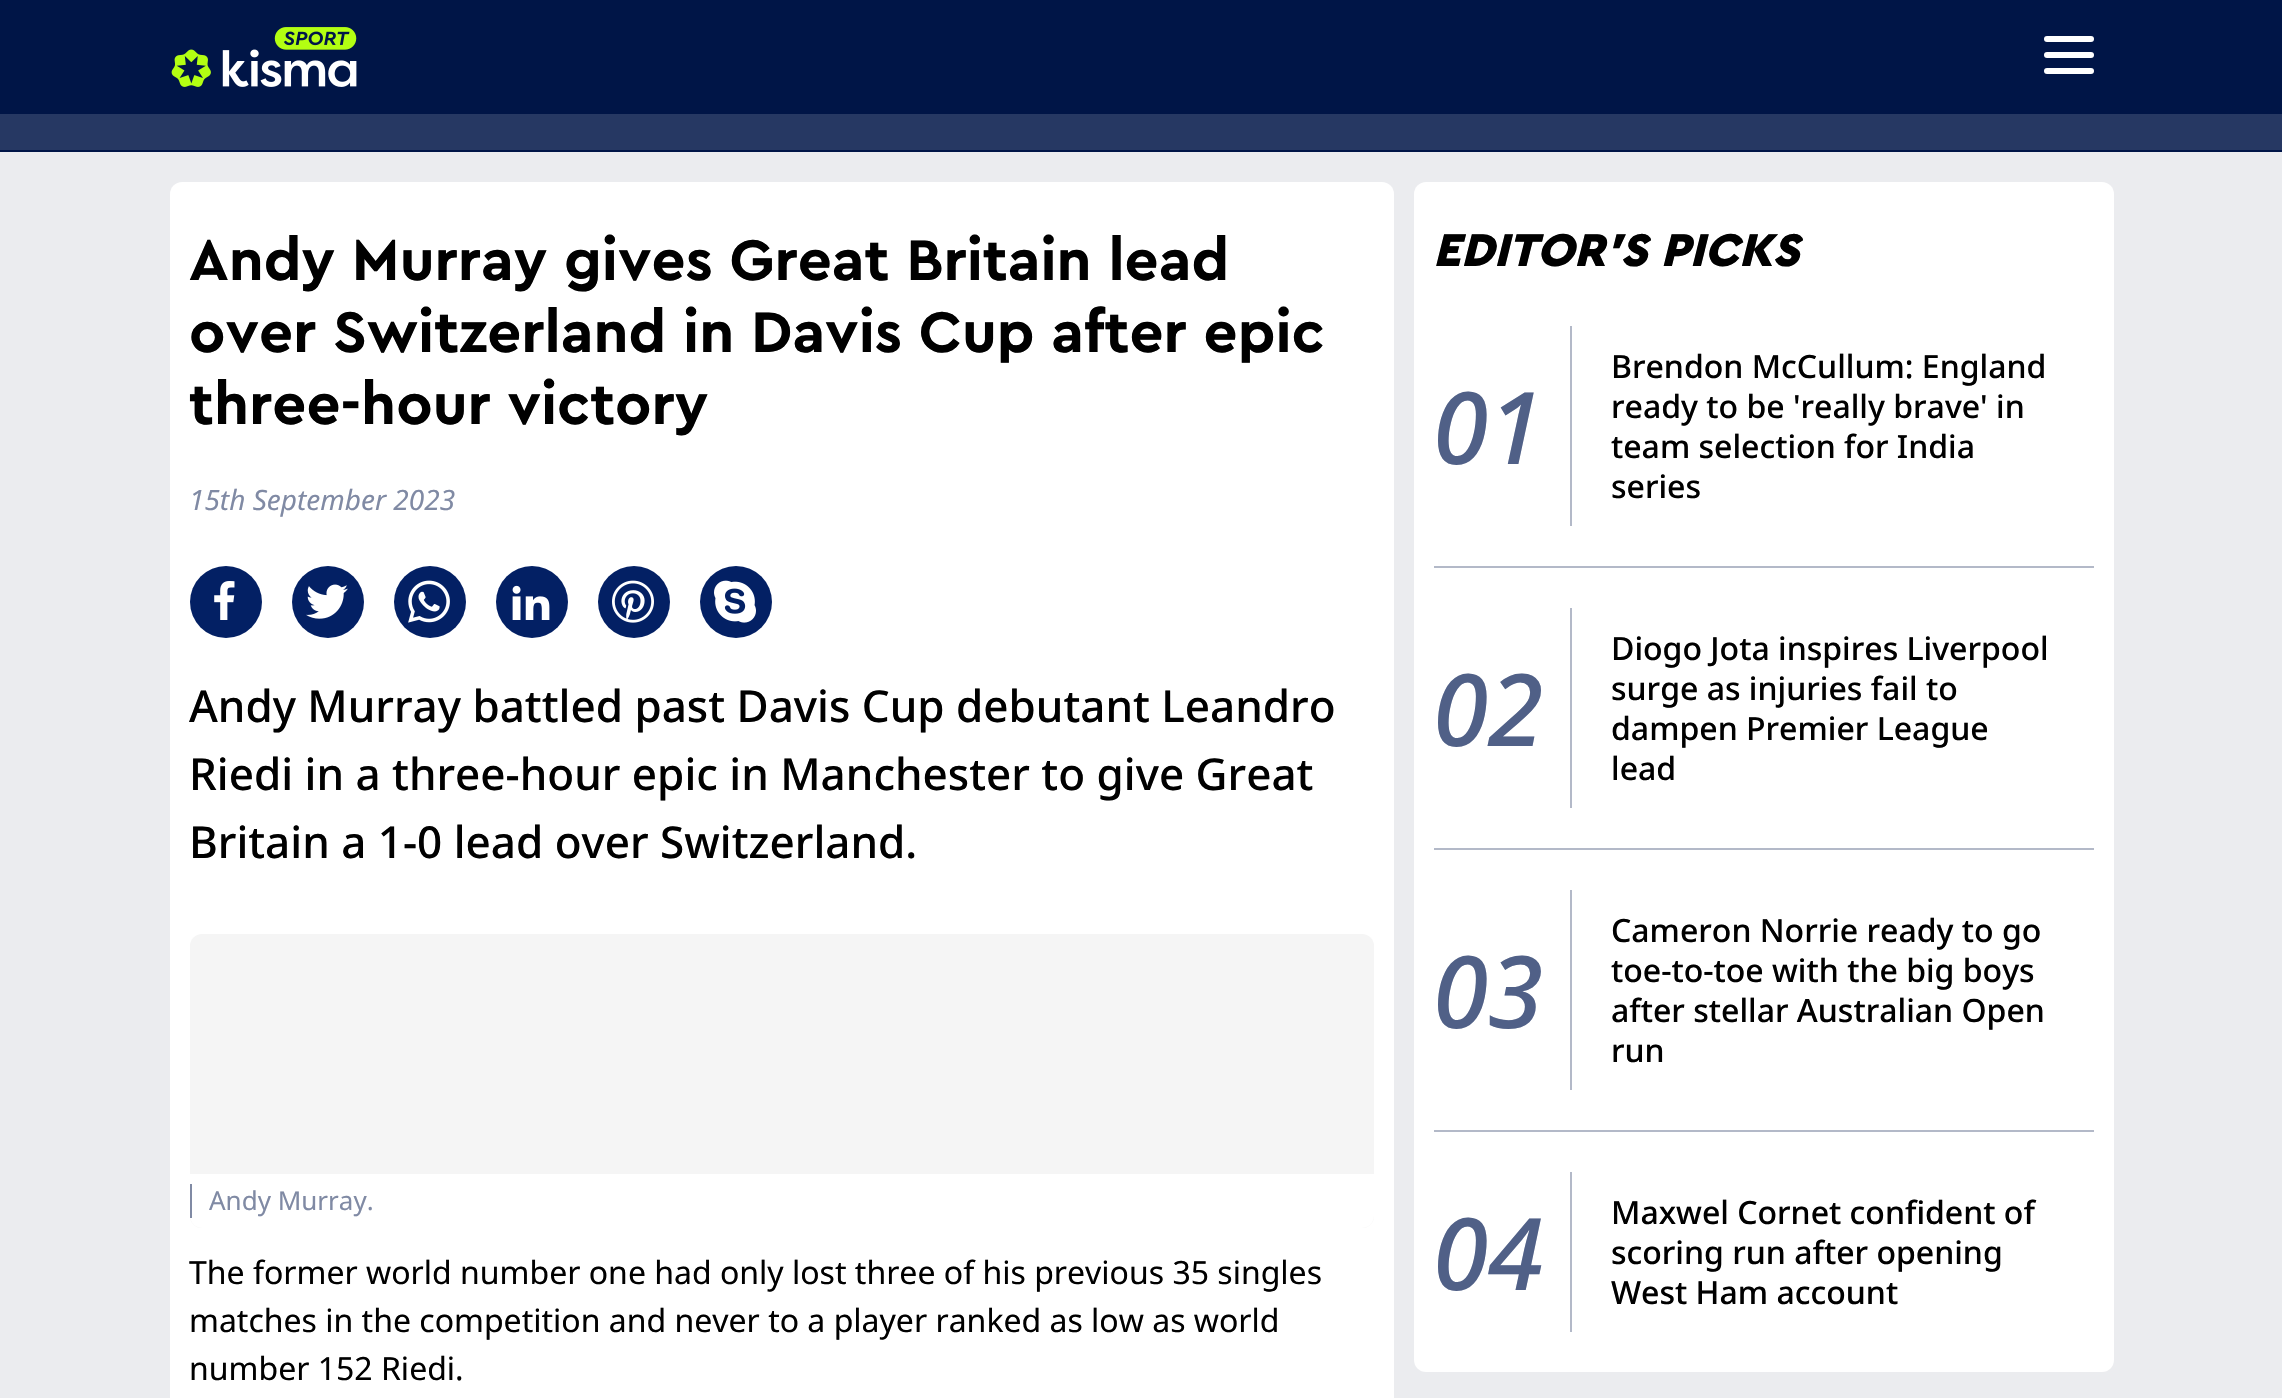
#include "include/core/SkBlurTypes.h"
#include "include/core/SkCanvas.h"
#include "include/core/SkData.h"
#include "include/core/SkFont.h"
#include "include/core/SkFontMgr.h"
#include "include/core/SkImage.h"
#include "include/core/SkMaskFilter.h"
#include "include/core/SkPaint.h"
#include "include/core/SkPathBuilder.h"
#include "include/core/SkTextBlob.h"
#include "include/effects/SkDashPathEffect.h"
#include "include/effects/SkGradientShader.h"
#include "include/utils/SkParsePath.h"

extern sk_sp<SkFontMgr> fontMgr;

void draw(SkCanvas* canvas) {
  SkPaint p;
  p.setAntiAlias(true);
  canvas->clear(SkColorSetRGB(235, 236, 239));
  p.setColor(SkColorSetRGB(0, 21, 71));
  canvas->drawRect(SkRect::MakeLTRB(0, 0, 2282, 114), p);
  canvas->drawImageRect(SkImages::DeferredFromEncodedData(SkData::MakeFromFileName("images/1.png")), SkRect::MakeLTRB(171, 27, 357, 87), SkSamplingOptions());
  p.setColor(SK_ColorWHITE);
  canvas->drawRoundRect(SkRect::MakeLTRB(2044, 36, 2094, 42), 3, 3, p);
  canvas->drawRoundRect(SkRect::MakeLTRB(2044, 52, 2094, 58), 3, 3, p);
  canvas->drawRoundRect(SkRect::MakeLTRB(2044, 68, 2094, 74), 3, 3, p);
  p.setColor(SkColorSetRGB(38, 56, 99));
  canvas->drawRect(SkRect::MakeLTRB(0, 114, 2282, 150), p);
  p.setColor(SkColorSetRGB(0, 21, 72));
  canvas->drawRect(SkRect::MakeLTRB(0, 150, 2282, 152), p);
  p.setColor(SK_ColorWHITE);
  canvas->drawRoundRect(SkRect::MakeLTRB(170, 182, 1394, 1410), 12, 12, p);
  p.setColor(SkColorSetRGB(3, 32, 100));
  canvas->drawCircle(226, 602, 36, p);
  canvas->drawImageRect(SkImages::DeferredFromEncodedData(SkData::MakeFromFileName("images/2.png")), SkRect::MakeLTRB(214, 581, 235, 620), SkSamplingOptions());
  canvas->drawCircle(328, 602, 36, p);
  canvas->drawImageRect(SkImages::DeferredFromEncodedData(SkData::MakeFromFileName("images/3.png")), SkRect::MakeLTRB(306, 584, 348, 619), SkSamplingOptions());
  canvas->drawCircle(430, 602, 36, p);
  canvas->drawImageRect(SkImages::DeferredFromEncodedData(SkData::MakeFromFileName("images/4.png")), SkRect::MakeLTRB(408, 580, 450, 623), SkSamplingOptions());
  canvas->drawCircle(532, 602, 36, p);
  canvas->drawImageRect(SkImages::DeferredFromEncodedData(SkData::MakeFromFileName("images/5.png")), SkRect::MakeLTRB(512, 585, 550, 620), SkSamplingOptions());
  canvas->drawCircle(634, 602, 36, p);
  canvas->drawImageRect(SkImages::DeferredFromEncodedData(SkData::MakeFromFileName("images/6.png")), SkRect::MakeLTRB(612, 580, 654, 623), SkSamplingOptions());
  canvas->drawCircle(736, 602, 36, p);
  canvas->drawImageRect(SkImages::DeferredFromEncodedData(SkData::MakeFromFileName("images/7.png")), SkRect::MakeLTRB(714, 580, 756, 623), SkSamplingOptions());
  p.setColor(SkColorSetRGB(245, 245, 245));
  canvas->drawRoundRect(SkRect::MakeLTRB(190, 934, 1374, 1228), 12, 12, p);
  p.setColor(SK_ColorWHITE);
  canvas->drawPath(SkPathBuilder().moveTo(190, 1174).lineTo(1374, 1174).lineTo(1374, 1216).cubicTo(1374, 1222.5f, 1368.5f, 1228, 1362, 1228).lineTo(202, 1228).cubicTo(195.5f, 1228, 190, 1222.5f, 190, 1216).close().detach(), p);
  p.setColor(SkColorSetRGB(128, 138, 164));
  canvas->drawRect(SkRect::MakeLTRB(190, 1184, 192, 1218), p);
  p.setColor(SK_ColorWHITE);
  canvas->drawRoundRect(SkRect::MakeLTRB(1414, 182, 2114, 1372), 12, 12, p);
  p.setColor(SkColorSetRGB(179, 185, 200));
  canvas->drawRect(SkRect::MakeLTRB(1570, 326, 1572, 526), p);
  canvas->drawRect(SkRect::MakeLTRB(1434, 566, 2094, 568), p);
  canvas->drawRect(SkRect::MakeLTRB(1570, 608, 1572, 808), p);
  canvas->drawRect(SkRect::MakeLTRB(1434, 848, 2094, 850), p);
  canvas->drawRect(SkRect::MakeLTRB(1570, 890, 1572, 1090), p);
  canvas->drawRect(SkRect::MakeLTRB(1434, 1130, 2094, 1132), p);
  canvas->drawRect(SkRect::MakeLTRB(1570, 1172, 1572, 1332), p);
  SkFont font1(fontMgr->matchFamilyStyle("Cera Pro", SkFontStyle::Bold()), 60);
  font1.setSubpixel(true);
  p.setColor(SK_ColorBLACK);
  canvas->drawString("Andy Murray gives Great Britain lead", 189, 280, font1, p);
  canvas->drawString("over Switzerland in Davis Cup after epic", 189, 352, font1, p);
  canvas->drawString("three-hour victory", 189, 424, font1, p);
  SkFont font2(fontMgr->matchFamilyStyle("Noto Sans", SkFontStyle::Italic()), 28);
  font2.setSubpixel(true);
  p.setColor(SkColorSetRGB(128, 138, 164));
  canvas->drawString("15th September 2023", 189, 510, font2, p);
  SkFont font3(fontMgr->matchFamilyStyle("Noto Sans", SkFontStyle(500, SkFontStyle::kNormal_Width, SkFontStyle::kUpright_Slant)), 44);
  font3.setSubpixel(true);
  p.setColor(SK_ColorBLACK);
  canvas->drawString("Andy Murray battled past Davis Cup debutant Leandro", 189, 722, font3, p);
  canvas->drawString("Riedi in a three-hour epic in Manchester to give Great", 189, 790, font3, p);
  canvas->drawString("Britain a 1-0 lead over Switzerland.", 189, 858, font3, p);
  SkFont font4(fontMgr->matchFamilyStyle("Noto Sans", SkFontStyle::Normal()), 26);
  font4.setSubpixel(true);
  p.setColor(SkColorSetRGB(128, 138, 164));
  canvas->drawString("Andy Murray.", 209, 1210, font4, p);
  SkFont font5(fontMgr->matchFamilyStyle("Noto Sans", SkFontStyle::Normal()), 32);
  font5.setSubpixel(true);
  p.setColor(SK_ColorBLACK);
  canvas->drawString("The former world number one had only lost three of his previous 35 singles", 189, 1284, font5, p);
  canvas->drawString("matches in the competition and never to a player ranked as low as world", 189, 1332, font5, p);
  canvas->drawString("number 152 Riedi.", 189, 1380, font5, p);
  SkFont font6(fontMgr->matchFamilyStyle("Cera Pro", SkFontStyle(900, SkFontStyle::kNormal_Width, SkFontStyle::kItalic_Slant)), 48);
  font6.setSubpixel(true);
  canvas->drawString("EDITOR'S PICKS", 1433, 266, font6, p);
  SkFont font7(fontMgr->matchFamilyStyle("Noto Sans", SkFontStyle(500, SkFontStyle::kNormal_Width, SkFontStyle::kItalic_Slant)), 100);
  font7.setSubpixel(true);
  p.setColor(SkColorSetRGB(80, 96, 135));
  canvas->drawString("01", 1433, 464, font7, p);
  SkFont font8(fontMgr->matchFamilyStyle("Noto Sans", SkFontStyle(500, SkFontStyle::kNormal_Width, SkFontStyle::kUpright_Slant)), 32);
  font8.setSubpixel(true);
  p.setColor(SK_ColorBLACK);
  canvas->drawString("Brendon McCullum: England", 1611, 378, font8, p);
  canvas->drawString("ready to be 'really brave' in", 1611, 418, font8, p);
  canvas->drawString("team selection for India", 1611, 458, font8, p);
  canvas->drawString("series", 1611, 498, font8, p);
  p.setColor(SkColorSetRGB(80, 96, 135));
  canvas->drawString("02", 1433, 746, font7, p);
  p.setColor(SK_ColorBLACK);
  canvas->drawString("Diogo Jota inspires Liverpool", 1611, 660, font8, p);
  canvas->drawString("surge as injuries fail to", 1611, 700, font8, p);
  canvas->drawString("dampen Premier League", 1611, 740, font8, p);
  canvas->drawString("lead", 1611, 780, font8, p);
  p.setColor(SkColorSetRGB(80, 96, 135));
  canvas->drawString("03", 1433, 1028, font7, p);
  p.setColor(SK_ColorBLACK);
  canvas->drawString("Cameron Norrie ready to go", 1611, 942, font8, p);
  canvas->drawString("toe-to-toe with the big boys", 1611, 982, font8, p);
  canvas->drawString("after stellar Australian Open", 1611, 1022, font8, p);
  canvas->drawString("run", 1611, 1062, font8, p);
  p.setColor(SkColorSetRGB(80, 96, 135));
  canvas->drawString("04", 1433, 1290, font7, p);
  p.setColor(SK_ColorBLACK);
  canvas->drawString("Maxwel Cornet confident of", 1611, 1224, font8, p);
  canvas->drawString("scoring run after opening", 1611, 1264, font8, p);
  canvas->drawString("West Ham account", 1611, 1304, font8, p);
}
